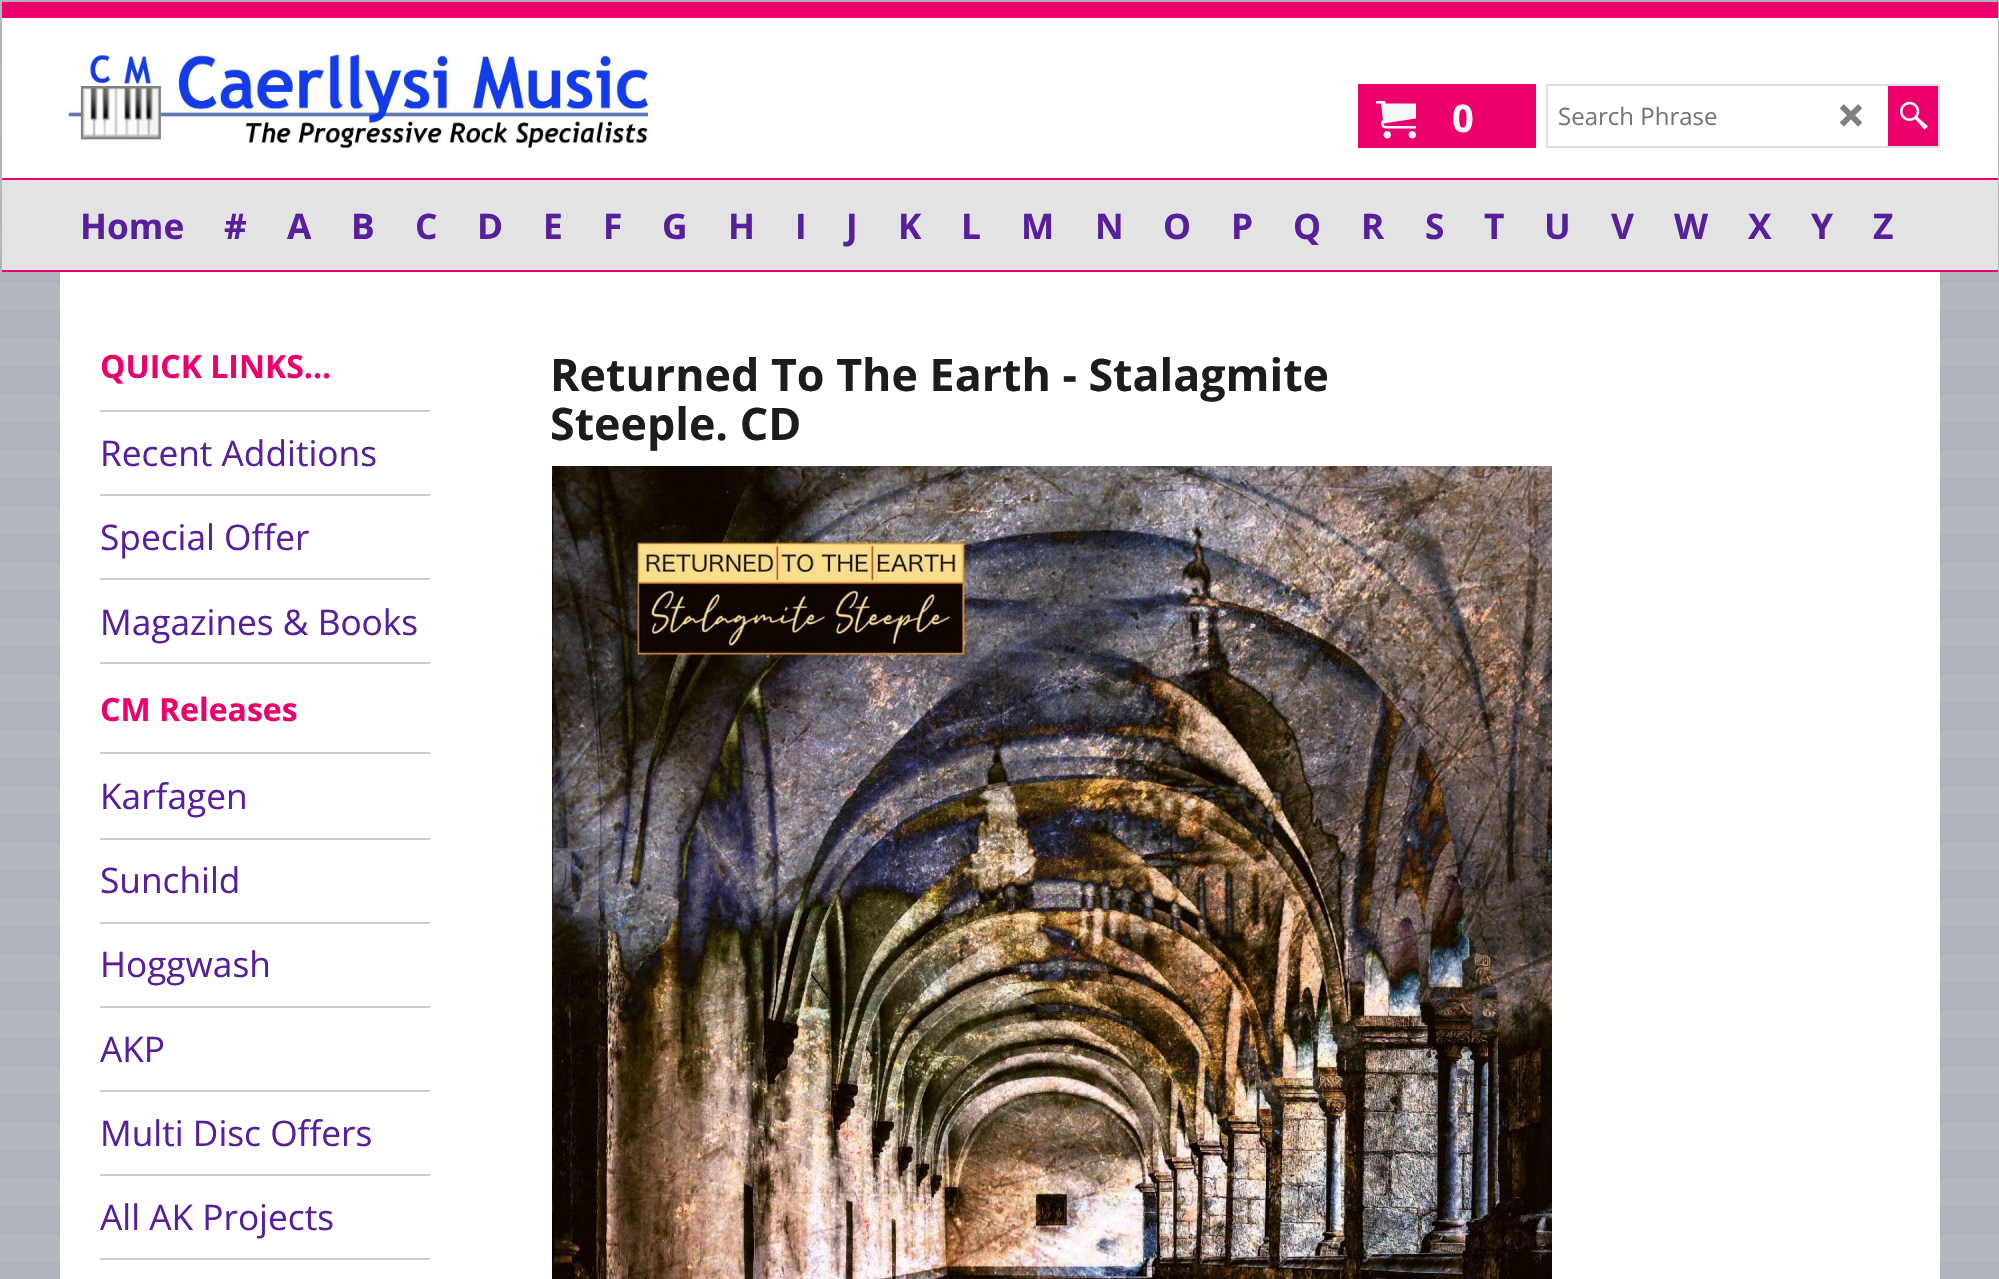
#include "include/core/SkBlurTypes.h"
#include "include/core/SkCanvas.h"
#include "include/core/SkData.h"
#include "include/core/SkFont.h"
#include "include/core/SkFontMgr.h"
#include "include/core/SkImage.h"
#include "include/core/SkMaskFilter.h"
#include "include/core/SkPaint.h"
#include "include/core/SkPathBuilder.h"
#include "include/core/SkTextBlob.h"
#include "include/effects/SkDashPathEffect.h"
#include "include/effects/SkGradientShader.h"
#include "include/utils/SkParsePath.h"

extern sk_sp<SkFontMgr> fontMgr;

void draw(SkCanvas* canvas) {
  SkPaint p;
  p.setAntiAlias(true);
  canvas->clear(SK_ColorWHITE);
  canvas->drawImageRect(SkImages::DeferredFromEncodedData(SkData::MakeFromFileName("images/1.png")), SkRect::MakeLTRB(0, 0, 1999, 1279), SkSamplingOptions());
  p.setColor(SK_ColorWHITE);
  canvas->drawRect(SkRect::MakeLTRB(2, 18, 1998, 178), p);
  p.setColor(SkColorSetRGB(236, 0, 108));
  canvas->drawRect(SkRect::MakeLTRB(2, 2, 1998, 18), p);
  canvas->drawRect(SkRect::MakeLTRB(2, 178, 1998, 180), p);
  canvas->drawImageRect(SkImages::DeferredFromEncodedData(SkData::MakeFromFileName("images/2.png")), SkRect::MakeLTRB(66, 54, 652, 148), SkSamplingOptions());
  canvas->drawRect(SkRect::MakeLTRB(1358, 84, 1536, 148), p);
  canvas->drawImageRect(SkImages::DeferredFromEncodedData(SkData::MakeFromFileName("images/3.png")), SkRect::MakeLTRB(1376, 101, 1416, 139), SkSamplingOptions());
  p.setColor(SkColorSetRGB(222, 222, 222));
  canvas->drawRect(SkRect::MakeLTRB(1546, 84, 1940, 148), p);
  p.setColor(SK_ColorWHITE);
  canvas->drawRect(SkRect::MakeLTRB(1548, 86, 1888, 146), p);
  canvas->drawImageRect(SkImages::DeferredFromEncodedData(SkData::MakeFromFileName("images/4.png")), SkRect::MakeLTRB(1840, 104, 1862, 127), SkSamplingOptions());
  p.setColor(SkColorSetRGB(236, 0, 108));
  canvas->drawRect(SkRect::MakeLTRB(1888, 86, 1938, 146), p);
  canvas->drawImageRect(SkImages::DeferredFromEncodedData(SkData::MakeFromFileName("images/5.png")), SkRect::MakeLTRB(1900, 101, 1928, 130), SkSamplingOptions());
  p.setColor(SkColorSetRGB(227, 227, 227));
  canvas->drawRect(SkRect::MakeLTRB(2, 180, 1998, 270), p);
  p.setColor(SkColorSetRGB(236, 0, 108));
  canvas->drawRect(SkRect::MakeLTRB(2, 270, 1998, 272), p);
  p.setColor(SK_ColorWHITE);
  canvas->drawRect(SkRect::MakeLTRB(60, 272, 1940, 1279), p);
  p.setColor(SkColorSetRGB(204, 204, 204));
  canvas->drawRect(SkRect::MakeLTRB(100, 410, 430, 412), p);
  canvas->drawRect(SkRect::MakeLTRB(100, 494, 430, 496), p);
  canvas->drawRect(SkRect::MakeLTRB(100, 578, 430, 580), p);
  canvas->drawRect(SkRect::MakeLTRB(100, 662, 430, 664), p);
  canvas->drawRect(SkRect::MakeLTRB(100, 752, 430, 754), p);
  canvas->drawRect(SkRect::MakeLTRB(100, 838, 430, 840), p);
  canvas->drawRect(SkRect::MakeLTRB(100, 922, 430, 924), p);
  canvas->drawRect(SkRect::MakeLTRB(100, 1006, 430, 1008), p);
  canvas->drawRect(SkRect::MakeLTRB(100, 1090, 430, 1092), p);
  canvas->drawRect(SkRect::MakeLTRB(100, 1174, 430, 1176), p);
  canvas->drawRect(SkRect::MakeLTRB(100, 1258, 430, 1260), p);
  canvas->drawImageRect(SkImages::DeferredFromEncodedData(SkData::MakeFromFileName("images/6.png")), SkRect::MakeLTRB(552, 466, 1552, 1279), SkSamplingOptions());
  SkFont font1(fontMgr->matchFamilyStyle("Open Sans", SkFontStyle::Bold()), 38);
  font1.setSubpixel(true);
  p.setColor(SkColorSetRGB(247, 247, 247));
  canvas->drawString("0", 1452, 132, font1, p);
  SkFont font2(fontMgr->matchFamilyStyle("Open Sans", SkFontStyle::Normal()), 24);
  font2.setSubpixel(true);
  p.setColor(SkColorSetRGB(117, 117, 117));
  canvas->drawString("Search Phrase", 1558, 125, font2, p);
  SkFont font3(fontMgr->matchFamilyStyle("Open Sans", SkFontStyle::Bold()), 35.25f);
  font3.setSubpixel(true);
  p.setColor(SkColorSetRGB(87, 31, 156));
  canvas->drawString("Home", 80, 239, font3, p);
  canvas->drawString("#", 224, 239, font3, p);
  canvas->drawString("A", 287, 239, font3, p);
  canvas->drawString("B", 351, 239, font3, p);
  canvas->drawString("C", 415, 239, font3, p);
  canvas->drawString("D", 477, 239, font3, p);
  canvas->drawString("E", 543, 239, font3, p);
  canvas->drawString("F", 603, 239, font3, p);
  canvas->drawString("G", 662, 239, font3, p);
  canvas->drawString("H", 728, 239, font3, p);
  canvas->drawString("I", 795, 239, font3, p);
  canvas->drawString("J", 846, 239, font3, p);
  canvas->drawString("K", 898, 239, font3, p);
  canvas->drawString("L", 961, 239, font3, p);
  canvas->drawString("M", 1021, 239, font3, p);
  canvas->drawString("N", 1095, 239, font3, p);
  canvas->drawString("O", 1163, 239, font3, p);
  canvas->drawString("P", 1231, 239, font3, p);
  canvas->drawString("Q", 1293, 239, font3, p);
  canvas->drawString("R", 1361, 239, font3, p);
  canvas->drawString("S", 1425, 239, font3, p);
  canvas->drawString("T", 1484, 239, font3, p);
  canvas->drawString("U", 1544, 239, font3, p);
  canvas->drawString("V", 1611, 239, font3, p);
  canvas->drawString("W", 1674, 239, font3, p);
  canvas->drawString("X", 1748, 239, font3, p);
  canvas->drawString("Y", 1811, 239, font3, p);
  canvas->drawString("Z", 1873, 239, font3, p);
  SkFont font4(fontMgr->matchFamilyStyle("Open Sans", SkFontStyle::Bold()), 32);
  font4.setSubpixel(true);
  p.setColor(SkColorSetRGB(236, 0, 108));
  canvas->drawString("QUICK LINKS...", 100, 378, font4, p);
  SkFont font5(fontMgr->matchFamilyStyle("Open Sans", SkFontStyle::Normal()), 35.25f);
  font5.setSubpixel(true);
  p.setColor(SkColorSetRGB(87, 31, 156));
  canvas->drawString("Recent Additions", 100, 466, font5, p);
  canvas->drawString("Special Offer", 100, 550, font5, p);
  canvas->drawString("Magazines & Books", 100, 635, font5, p);
  p.setColor(SkColorSetRGB(236, 0, 108));
  canvas->drawString("CM Releases", 100, 721, font4, p);
  p.setColor(SkColorSetRGB(87, 31, 156));
  canvas->drawString("Karfagen", 100, 809, font5, p);
  canvas->drawString("Sunchild", 100, 893, font5, p);
  canvas->drawString("Hoggwash", 100, 977, font5, p);
  canvas->drawString("AKP", 100, 1062, font5, p);
  canvas->drawString("Multi Disc Offers", 100, 1146, font5, p);
  canvas->drawString("All AK Projects", 100, 1230, font5, p);
  SkFont font6(fontMgr->matchFamilyStyle("Open Sans", SkFontStyle::Bold()), 44.75f);
  font6.setSubpixel(true);
  p.setColor(SkColorSetRGB(28, 28, 28));
  canvas->drawString("Returned To The Earth - Stalagmite", 550, 391, font6, p);
  canvas->drawString("Steeple. CD", 550, 440, font6, p);
}
